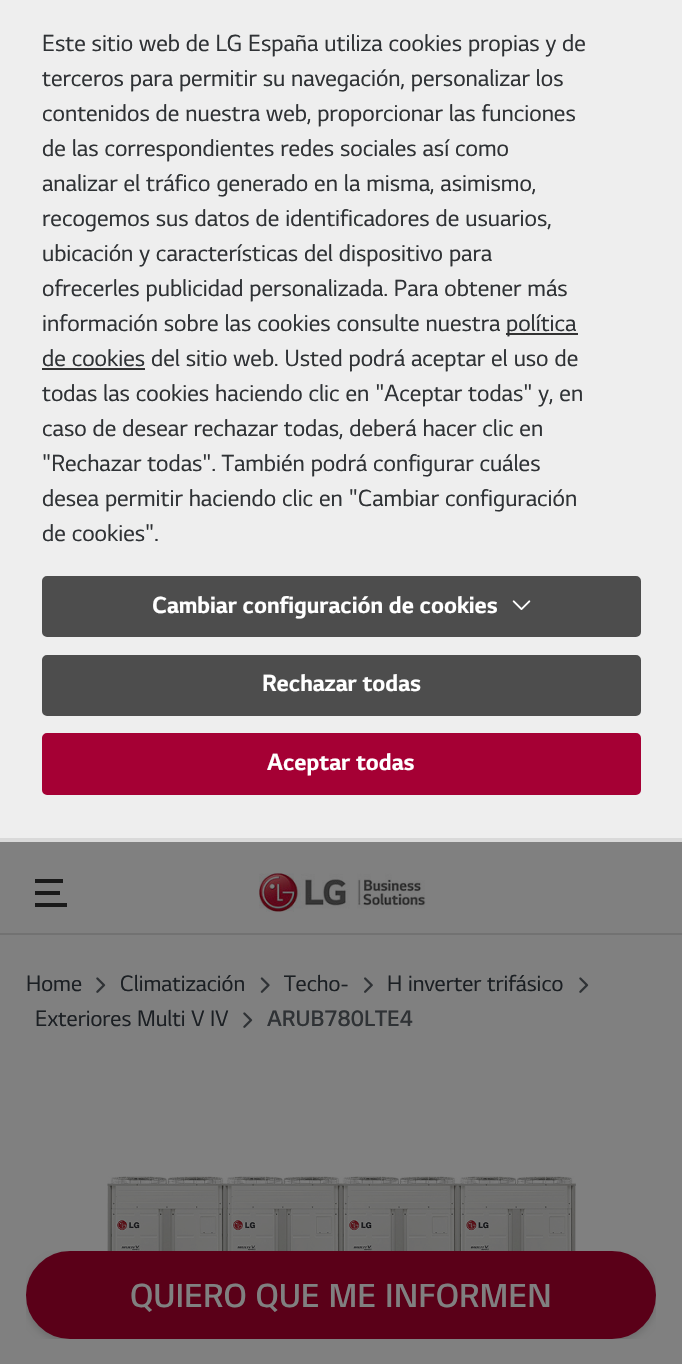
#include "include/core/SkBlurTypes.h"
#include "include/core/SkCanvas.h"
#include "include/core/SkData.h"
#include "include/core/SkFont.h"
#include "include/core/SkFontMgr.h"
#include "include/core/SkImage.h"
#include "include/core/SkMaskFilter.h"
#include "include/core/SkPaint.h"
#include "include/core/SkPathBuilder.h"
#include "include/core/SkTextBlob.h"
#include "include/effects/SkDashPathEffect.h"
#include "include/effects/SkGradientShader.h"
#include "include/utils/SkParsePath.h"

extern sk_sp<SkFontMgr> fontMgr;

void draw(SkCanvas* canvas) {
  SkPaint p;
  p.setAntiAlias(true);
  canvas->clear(SkColorSetRGB(128, 128, 128));
  p.setColor(SkColorSetRGB(238, 238, 238));
  canvas->drawRect(SkRect::MakeLTRB(0, 0, 682, 838), p);
  p.setColor(SkColorSetRGB(217, 217, 217));
  canvas->drawRect(SkRect::MakeLTRB(0, 838, 682, 842), p);
  p.setColor(SkColorSetRGB(51, 51, 51));
  canvas->drawRect(SkRect::MakeLTRB(506, 333, 578, 335), p);
  canvas->drawRect(SkRect::MakeLTRB(42, 368, 145, 370), p);
  p.setColor(SkColorSetRGB(77, 77, 77));
  canvas->drawRoundRect(SkRect::MakeLTRB(43, 577, 640, 636), 4, 4, p);
  p.setStyle(SkPaint::kStroke_Style);
  p.setStrokeWidth(2);
  canvas->drawRoundRect(SkRect::MakeLTRB(43, 577, 640, 636), 4, 4, p);
  canvas->drawImageRect(SkImages::DeferredFromEncodedData(SkData::MakeFromFileName("images/1.png")), SkRect::MakeLTRB(512, 600, 531, 610), SkSamplingOptions());
  p.setStyle(SkPaint::kFill_Style);
  canvas->drawRoundRect(SkRect::MakeLTRB(43, 656, 640, 715), 4, 4, p);
  p.setStyle(SkPaint::kStroke_Style);
  canvas->drawRoundRect(SkRect::MakeLTRB(43, 656, 640, 715), 4, 4, p);
  p.setStyle(SkPaint::kFill_Style);
  p.setColor(SkColorSetRGB(165, 0, 52));
  canvas->drawRoundRect(SkRect::MakeLTRB(43, 734, 640, 794), 4, 4, p);
  p.setStyle(SkPaint::kStroke_Style);
  canvas->drawRoundRect(SkRect::MakeLTRB(43, 734, 640, 794), 4, 4, p);
  p.setStyle(SkPaint::kFill_Style);
  p.setColor(SkColorSetRGB(114, 114, 114));
  canvas->drawRect(SkRect::MakeLTRB(0, 933, 682, 935), p);
  p.setColor(SkColorSetRGB(26, 26, 26));
  canvas->drawRect(SkRect::MakeLTRB(35, 879, 63, 883), p);
  canvas->drawRect(SkRect::MakeLTRB(35, 891, 60, 895), p);
  canvas->drawRect(SkRect::MakeLTRB(35, 903, 67, 907), p);
  canvas->drawImageRect(SkImages::DeferredFromEncodedData(SkData::MakeFromFileName("images/2.png")), SkRect::MakeLTRB(259, 873, 426, 912), SkSamplingOptions());
  canvas->drawImageRect(SkImages::DeferredFromEncodedData(SkData::MakeFromFileName("images/3.png")), SkRect::MakeLTRB(96, 977, 106, 993), SkSamplingOptions());
  canvas->drawImageRect(SkImages::DeferredFromEncodedData(SkData::MakeFromFileName("images/4.png")), SkRect::MakeLTRB(260, 977, 270, 993), SkSamplingOptions());
  canvas->drawImageRect(SkImages::DeferredFromEncodedData(SkData::MakeFromFileName("images/5.png")), SkRect::MakeLTRB(364, 977, 373, 993), SkSamplingOptions());
  canvas->drawImageRect(SkImages::DeferredFromEncodedData(SkData::MakeFromFileName("images/3.png")), SkRect::MakeLTRB(579, 977, 589, 993), SkSamplingOptions());
  canvas->drawImageRect(SkImages::DeferredFromEncodedData(SkData::MakeFromFileName("images/3.png")), SkRect::MakeLTRB(243, 1012, 253, 1028), SkSamplingOptions());
  canvas->drawImageRect(SkImages::DeferredFromEncodedData(SkData::MakeFromFileName("images/6.png")), SkRect::MakeLTRB(107, 1176, 576, 1251), SkSamplingOptions());
  canvas->save();
  canvas->clipPath(SkPathBuilder().moveTo(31, 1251).lineTo(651, 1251).cubicTo(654, 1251, 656, 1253, 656, 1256).lineTo(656, 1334).cubicTo(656, 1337, 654, 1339, 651, 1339).lineTo(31, 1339).cubicTo(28, 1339, 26, 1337, 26, 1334).lineTo(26, 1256).cubicTo(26, 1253, 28, 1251, 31, 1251).close().detach(), true);
  p.setColor(SkColorSetARGB(38, 0, 0, 0));
  p.setMaskFilter(SkMaskFilter::MakeBlur(kNormal_SkBlurStyle, 3.5f));
  canvas->drawRoundRect(SkRect::MakeLTRB(26, 1255, 656, 1342), 43.5f, 43.5f, p);
  p.setMaskFilter(nullptr);
  canvas->restore();
  p.setColor(SkColorSetRGB(90, 0, 24));
  canvas->drawRoundRect(SkRect::MakeLTRB(27, 1252, 655, 1338), 43, 43, p);
  p.setStyle(SkPaint::kStroke_Style);
  canvas->drawRoundRect(SkRect::MakeLTRB(27, 1252, 655, 1338), 43, 43, p);
  SkFont font1(fontMgr->matchFamilyStyle("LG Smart", SkFontStyle::Normal()), 24.5f);
  font1.setSubpixel(true);
  p.setStyle(SkPaint::kFill_Style);
  p.setColor(SkColorSetRGB(47, 50, 53));
  canvas->drawString("Este sitio web de LG España utiliza cookies propias y de", 42, 51, font1, p);
  canvas->drawString("terceros para permitir su navegación, personalizar los", 42, 86, font1, p);
  canvas->drawString("contenidos de nuestra web, proporcionar las funciones", 42, 121, font1, p);
  canvas->drawString("de las correspondientes redes sociales así como", 42, 156, font1, p);
  canvas->drawString("analizar el tráfico generado en la misma, asimismo,", 42, 191, font1, p);
  canvas->drawString("recogemos sus datos de identificadores de usuarios,", 42, 226, font1, p);
  canvas->drawString("ubicación y características del dispositivo para", 42, 261, font1, p);
  canvas->drawString("ofrecerles publicidad personalizada. Para obtener más", 42, 296, font1, p);
  canvas->drawString("información sobre las cookies consulte nuestra", 42, 331, font1, p);
  canvas->drawString("política", 506, 331, font1, p);
  canvas->drawString("de cookies", 42, 366, font1, p);
  canvas->drawString("del sitio web. Usted podrá aceptar el uso de", 151, 366, font1, p);
  canvas->drawString("todas las cookies haciendo clic en \"Aceptar todas\" y, en", 42, 401, font1, p);
  canvas->drawString("caso de desear rechazar todas, deberá hacer clic en", 42, 436, font1, p);
  canvas->drawString("\"Rechazar todas\". También podrá configurar cuáles", 42, 471, font1, p);
  canvas->drawString("desea permitir haciendo clic en \"Cambiar configuración", 42, 506, font1, p);
  canvas->drawString("de cookies\".", 42, 541, font1, p);
  SkFont font2(fontMgr->matchFamilyStyle("LG Smart", SkFontStyle::Bold()), 24.5f);
  font2.setSubpixel(true);
  p.setColor(SK_ColorWHITE);
  canvas->drawString("Cambiar configuración de cookies", 152, 613, font2, p);
  canvas->drawString("Rechazar todas", 262, 691, font2, p);
  canvas->drawString("Aceptar todas", 267, 770, font2, p);
  SkFont font3(fontMgr->matchFamilyStyle("LG Smart", SkFontStyle::Normal()), 23.5f);
  font3.setSubpixel(true);
  p.setColor(SkColorSetRGB(27, 31, 35));
  canvas->drawString("Home", 26, 991, font3, p);
  canvas->drawString("Climatización", 120, 991, font3, p);
  canvas->drawString("Techo-", 284, 991, font3, p);
  canvas->drawString("H inverter trifásico", 387, 991, font3, p);
  canvas->drawString("Exteriores Multi V IV", 35, 1026, font3, p);
  SkFont font4(fontMgr->matchFamilyStyle("LG Smart", SkFontStyle(600, SkFontStyle::kNormal_Width, SkFontStyle::kUpright_Slant)), 23.5f);
  font4.setSubpixel(true);
  p.setColor(SkColorSetRGB(47, 50, 53));
  canvas->drawString("ARUB780LTE4", 267, 1026, font4, p);
  SkFont font5(fontMgr->matchFamilyStyle("LG Smart", SkFontStyle(600, SkFontStyle::kNormal_Width, SkFontStyle::kUpright_Slant)), 35);
  font5.setSubpixel(true);
  p.setColor(SkColorSetRGB(128, 128, 128));
  canvas->drawString("QUIERO QUE ME INFORMEN", 130, 1307, font5, p);
}
